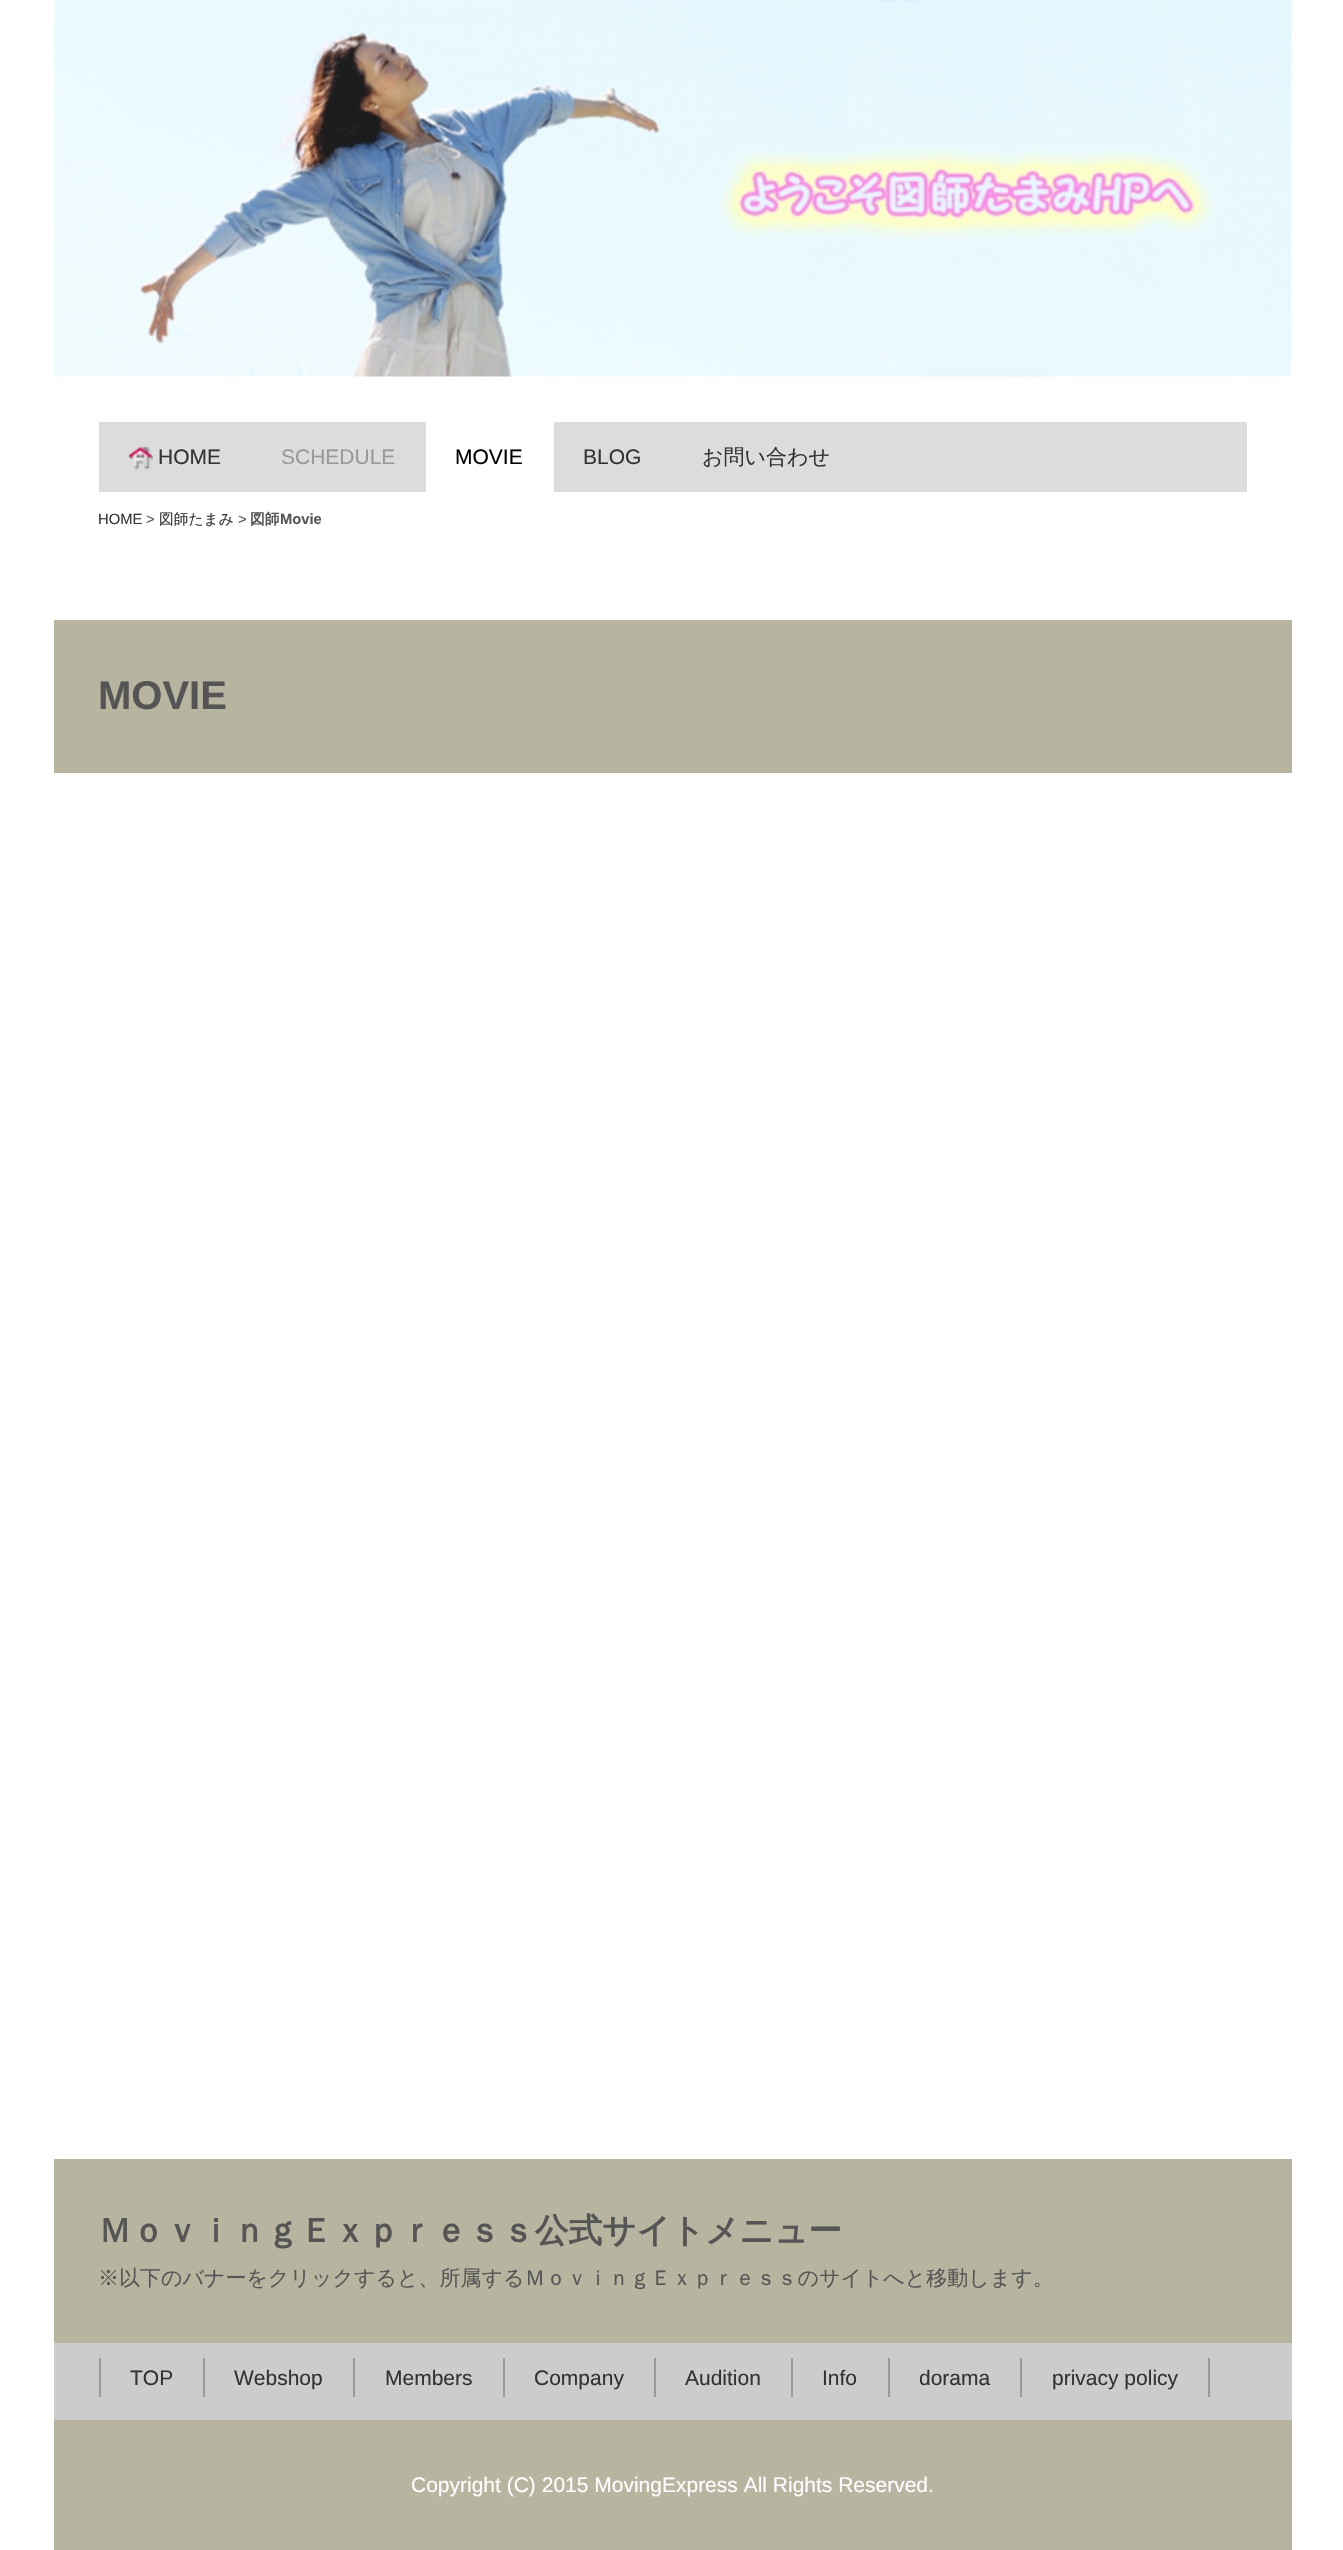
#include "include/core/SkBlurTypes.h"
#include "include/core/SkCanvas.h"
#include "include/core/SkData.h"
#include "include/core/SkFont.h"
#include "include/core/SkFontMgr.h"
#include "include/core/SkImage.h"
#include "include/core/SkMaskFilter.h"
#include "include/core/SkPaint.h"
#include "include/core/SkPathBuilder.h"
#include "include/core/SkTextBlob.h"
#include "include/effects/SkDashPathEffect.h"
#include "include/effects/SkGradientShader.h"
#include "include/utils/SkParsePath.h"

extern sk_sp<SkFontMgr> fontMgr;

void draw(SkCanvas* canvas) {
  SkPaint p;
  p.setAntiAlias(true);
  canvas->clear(SK_ColorWHITE);
  canvas->drawImageRect(SkImages::DeferredFromEncodedData(SkData::MakeFromFileName("images/1.png")), SkRect::MakeLTRB(54, 0, 1292, 377), SkSamplingOptions());
  p.setColor(SkColorSetRGB(220, 220, 220));
  canvas->drawRect(SkRect::MakeLTRB(99, 422, 1247, 492), p);
  canvas->drawImageRect(SkImages::DeferredFromEncodedData(SkData::MakeFromFileName("images/2.png")), SkRect::MakeLTRB(129, 446, 153, 470), SkSamplingOptions());
  p.setColor(SK_ColorWHITE);
  canvas->drawRect(SkRect::MakeLTRB(426, 422, 554, 492), p);
  p.setColor(SkColorSetRGB(183, 180, 160));
  canvas->drawRect(SkRect::MakeLTRB(54, 620, 1292, 773), p);
  canvas->drawRect(SkRect::MakeLTRB(54, 2159, 1292, 2550), p);
  p.setColor(SkColorSetRGB(204, 204, 204));
  canvas->drawRect(SkRect::MakeLTRB(54, 2343, 1292, 2420), p);
  p.setColor(SkColorSetRGB(153, 153, 153));
  canvas->drawRect(SkRect::MakeLTRB(203, 2358, 205, 2397), p);
  canvas->drawRect(SkRect::MakeLTRB(99, 2358, 101, 2397), p);
  canvas->drawRect(SkRect::MakeLTRB(353, 2358, 355, 2397), p);
  canvas->drawRect(SkRect::MakeLTRB(503, 2358, 505, 2397), p);
  canvas->drawRect(SkRect::MakeLTRB(654, 2358, 656, 2397), p);
  canvas->drawRect(SkRect::MakeLTRB(791, 2358, 793, 2397), p);
  canvas->drawRect(SkRect::MakeLTRB(888, 2358, 890, 2397), p);
  canvas->drawRect(SkRect::MakeLTRB(1020, 2358, 1022, 2397), p);
  canvas->drawRect(SkRect::MakeLTRB(1208, 2358, 1210, 2397), p);
  SkFont font1(fontMgr->matchFamilyStyle("Liberation Sans", SkFontStyle::Normal()), 21);
  font1.setSubpixel(true);
  p.setColor(SkColorSetRGB(51, 51, 51));
  canvas->drawString("HOME", 158, 464, font1, p);
  p.setColor(SkColorSetRGB(153, 153, 153));
  canvas->drawString("SCHEDULE", 281, 464, font1, p);
  p.setColor(SK_ColorBLACK);
  canvas->drawString("MOVIE", 455, 464, font1, p);
  p.setColor(SkColorSetRGB(51, 51, 51));
  canvas->drawString("BLOG", 583, 464, font1, p);
  SkFont font2(fontMgr->matchFamilyStyle("WenQuanYi Zen Hei", SkFontStyle(500, SkFontStyle::kNormal_Width, SkFontStyle::kUpright_Slant)), 21);
  font2.setSubpixel(true);
  canvas->drawString("お問い合わせ", 702, 464, font2, p);
  SkFont font3(fontMgr->matchFamilyStyle("Liberation Sans", SkFontStyle::Normal()), 14.75f);
  font3.setSubpixel(true);
  canvas->drawString("HOME", 98, 524, font3, p);
  p.setColor(SkColorSetRGB(85, 85, 85));
  canvas->drawString(">", 146, 524, font3, p);
  SkFont font4(fontMgr->matchFamilyStyle("WenQuanYi Zen Hei", SkFontStyle(500, SkFontStyle::kNormal_Width, SkFontStyle::kUpright_Slant)), 14.75f);
  font4.setSubpixel(true);
  p.setColor(SkColorSetRGB(51, 51, 51));
  canvas->drawString("図師たまみ", 159, 524, font4, p);
  p.setColor(SkColorSetRGB(85, 85, 85));
  canvas->drawString(">", 238, 524, font3, p);
  SkFont font5(fontMgr->matchFamilyStyle("WenQuanYi Zen Hei", SkFontStyle::Bold()), 14.75f);
  font5.setSubpixel(true);
  canvas->drawString("図師", 250, 524, font5, p);
  SkFont font6(fontMgr->matchFamilyStyle("Liberation Sans", SkFontStyle::Bold()), 14.75f);
  font6.setSubpixel(true);
  canvas->drawString("Movie", 280, 524, font6, p);
  SkFont font7(fontMgr->matchFamilyStyle("Liberation Sans", SkFontStyle::Bold()), 40);
  font7.setSubpixel(true);
  canvas->drawString("MOVIE", 98, 709, font7, p);
  SkFont font8(fontMgr->matchFamilyStyle("WenQuanYi Zen Hei", SkFontStyle::Bold()), 33.6f);
  font8.setSubpixel(true);
  canvas->drawString("ＭｏｖｉｎｇＥｘｐｒｅｓｓ公式サイトメニュー", 98, 2242, font8, p);
  canvas->drawString("※以下のバナーをクリックすると、所属するＭｏｖｉｎｇＥｘｐｒｅｓｓのサイトへと移動します。", 98, 2285, font2, p);
  p.setColor(SkColorSetRGB(51, 51, 51));
  canvas->drawString("TOP", 130, 2385, font1, p);
  canvas->drawString("Webshop", 234, 2385, font1, p);
  canvas->drawString("Members", 385, 2385, font1, p);
  canvas->drawString("Company", 534, 2385, font1, p);
  canvas->drawString("Audition", 685, 2385, font1, p);
  canvas->drawString("Info", 822, 2385, font1, p);
  canvas->drawString("dorama", 919, 2385, font1, p);
  canvas->drawString("privacy policy", 1052, 2385, font1, p);
  p.setColor(SK_ColorWHITE);
  canvas->drawString("Copyright (C) 2015 MovingExpress All Rights Reserved.", 411, 2492, font1, p);
}
